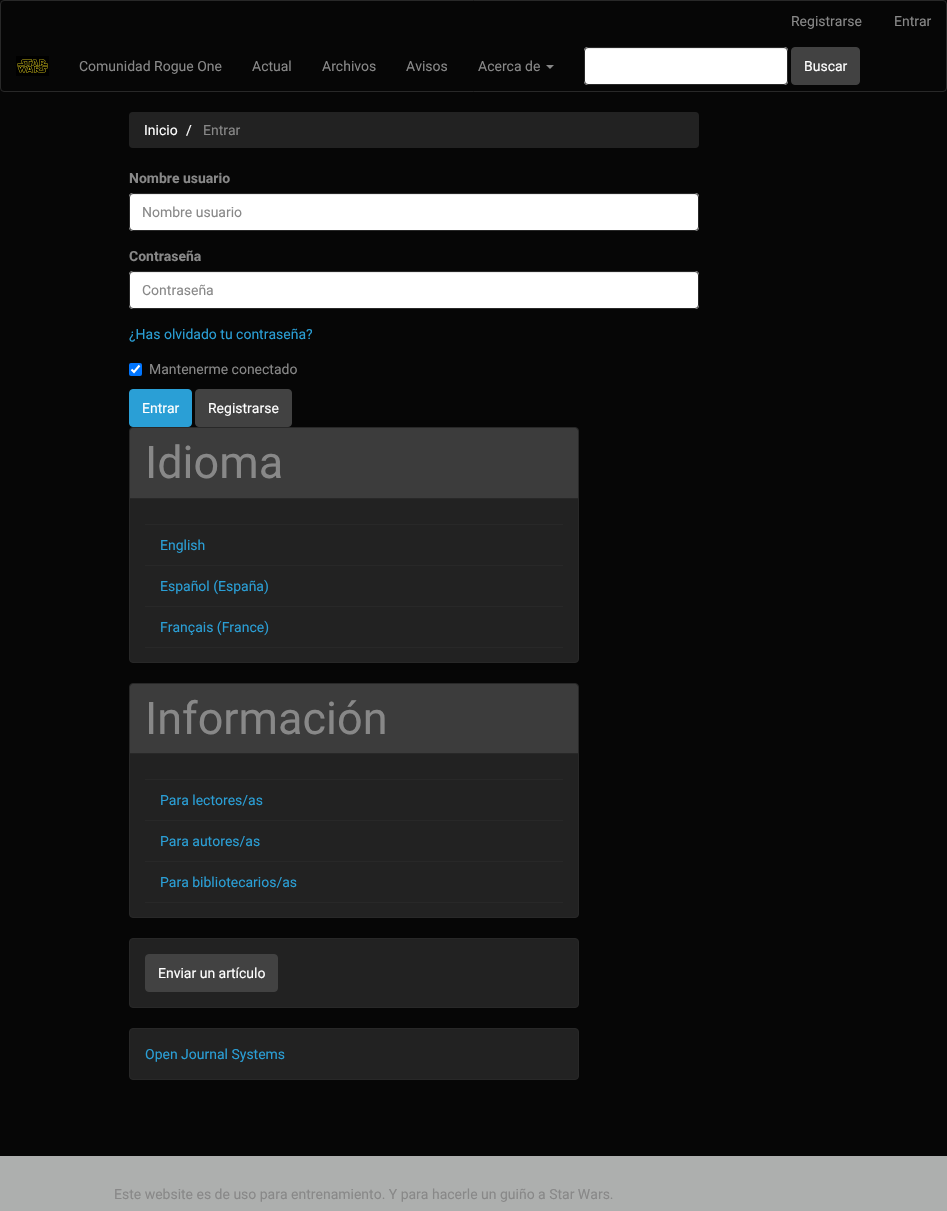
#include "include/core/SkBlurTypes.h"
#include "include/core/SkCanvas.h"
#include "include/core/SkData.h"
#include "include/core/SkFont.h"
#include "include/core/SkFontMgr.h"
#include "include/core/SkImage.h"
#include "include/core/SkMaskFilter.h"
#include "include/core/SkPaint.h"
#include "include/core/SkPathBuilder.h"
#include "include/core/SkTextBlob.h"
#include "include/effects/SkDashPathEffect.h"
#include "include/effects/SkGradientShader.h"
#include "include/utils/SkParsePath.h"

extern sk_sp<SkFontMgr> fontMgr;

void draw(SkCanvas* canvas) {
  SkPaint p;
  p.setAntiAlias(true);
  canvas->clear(SkColorSetRGB(6, 6, 6));
  p.setStyle(SkPaint::kStroke_Style);
  p.setStrokeWidth(1);
  p.setColor(SkColorSetRGB(40, 40, 40));
  canvas->drawRoundRect(SkRect::MakeLTRB(0.5f, 0.5f, 946.5f, 91.5f), 3.5f, 3.5f, p);
  canvas->drawImageRect(SkImages::DeferredFromEncodedData(SkData::MakeFromFileName("images/1.png")), SkRect::MakeLTRB(16, 56, 49, 76), SkSamplingOptions());
  p.setStyle(SkPaint::kFill_Style);
  p.setColor(SkColorSetRGB(136, 136, 136));
  canvas->drawPath(SkPathBuilder().moveTo(546, 65).lineTo(554, 65).lineTo(550, 69).close().detach(), p);
  p.setColor(SK_ColorWHITE);
  canvas->drawRoundRect(SkRect::MakeLTRB(584, 47, 788, 85), 4, 4, p);
  p.setColor(SkColorSetRGB(236, 236, 236));
  canvas->drawPath(SkPathBuilder().moveTo(588, 49).lineTo(784, 49).cubicTo(786, 49, 787, 50, 787, 52).cubicTo(787, 50, 786, 48, 784, 48).lineTo(588, 48).cubicTo(586, 48, 585, 50, 585, 52).cubicTo(585, 50, 586, 49, 588, 49).close().detach(), p);
  p.setStyle(SkPaint::kStroke_Style);
  p.setColor(SkColorSetRGB(40, 40, 40));
  canvas->drawRoundRect(SkRect::MakeLTRB(584.5f, 47.5f, 787.5f, 84.5f), 3.5f, 3.5f, p);
  p.setStyle(SkPaint::kFill_Style);
  p.setColor(SkColorSetRGB(66, 66, 66));
  canvas->drawRoundRect(SkRect::MakeLTRB(791.5f, 47.5f, 859.5f, 84.5f), 3.5f, 3.5f, p);
  p.setStyle(SkPaint::kStroke_Style);
  canvas->drawRoundRect(SkRect::MakeLTRB(791.5f, 47.5f, 859.5f, 84.5f), 3.5f, 3.5f, p);
  p.setStyle(SkPaint::kFill_Style);
  p.setColor(SkColorSetRGB(34, 34, 34));
  canvas->drawRoundRect(SkRect::MakeLTRB(129, 112, 699, 148), 4, 4, p);
  p.setColor(SK_ColorWHITE);
  canvas->drawRoundRect(SkRect::MakeLTRB(129, 193, 699, 231), 4, 4, p);
  p.setColor(SkColorSetRGB(236, 236, 236));
  canvas->drawPath(SkPathBuilder().moveTo(133, 195).lineTo(695, 195).cubicTo(697, 195, 698, 196, 698, 198).lineTo(698, 197).cubicTo(698, 195, 697, 194, 695, 194).lineTo(133, 194).cubicTo(131, 194, 130, 195, 130, 197).lineTo(130, 198).cubicTo(130, 196, 131, 195, 133, 195).close().detach(), p);
  p.setStyle(SkPaint::kStroke_Style);
  p.setColor(SkColorSetRGB(40, 40, 40));
  canvas->drawRoundRect(SkRect::MakeLTRB(129.5f, 193.5f, 698.5f, 230.5f), 3.5f, 3.5f, p);
  p.setStyle(SkPaint::kFill_Style);
  p.setColor(SK_ColorWHITE);
  canvas->drawRoundRect(SkRect::MakeLTRB(129, 271, 699, 309), 4, 4, p);
  p.setColor(SkColorSetRGB(236, 236, 236));
  canvas->drawPath(SkPathBuilder().moveTo(133, 273).lineTo(695, 273).cubicTo(697, 273, 698, 274, 698, 276).lineTo(698, 275).cubicTo(698, 273, 697, 272, 695, 272).lineTo(133, 272).cubicTo(131, 272, 130, 273, 130, 275).lineTo(130, 276).cubicTo(130, 274, 131, 273, 133, 273).close().detach(), p);
  p.setStyle(SkPaint::kStroke_Style);
  p.setColor(SkColorSetRGB(40, 40, 40));
  canvas->drawRoundRect(SkRect::MakeLTRB(129.5f, 271.5f, 698.5f, 308.5f), 3.5f, 3.5f, p);
  p.setStyle(SkPaint::kFill_Style);
  p.setColor(SkColorSetRGB(0, 117, 255));
  canvas->drawRoundRect(SkRect::MakeLTRB(129, 363, 142, 376), 2, 2, p);
  p.setStyle(SkPaint::kStroke_Style);
  p.setStrokeWidth(2.1f);
  p.setColor(SK_ColorWHITE);
  canvas->drawPath(SkPathBuilder().moveTo(131.5f, 369.5f).lineTo(134, 372).lineTo(139.5f, 365.5f).detach(), p);
  p.setStyle(SkPaint::kFill_Style);
  p.setColor(SkColorSetRGB(42, 159, 214));
  canvas->drawRoundRect(SkRect::MakeLTRB(129.5f, 389.5f, 191.5f, 426.5f), 3.5f, 3.5f, p);
  p.setStyle(SkPaint::kStroke_Style);
  p.setStrokeWidth(1);
  canvas->drawRoundRect(SkRect::MakeLTRB(129.5f, 389.5f, 191.5f, 426.5f), 3.5f, 3.5f, p);
  p.setStyle(SkPaint::kFill_Style);
  p.setColor(SkColorSetRGB(66, 66, 66));
  canvas->drawRoundRect(SkRect::MakeLTRB(195.5f, 389.5f, 291.5f, 426.5f), 3.5f, 3.5f, p);
  p.setStyle(SkPaint::kStroke_Style);
  canvas->drawRoundRect(SkRect::MakeLTRB(195.5f, 389.5f, 291.5f, 426.5f), 3.5f, 3.5f, p);
  p.setStyle(SkPaint::kFill_Style);
  p.setColor(SkColorSetRGB(34, 34, 34));
  canvas->drawRoundRect(SkRect::MakeLTRB(129.5f, 427.5f, 578.5f, 662.5f), 3.5f, 3.5f, p);
  p.setStyle(SkPaint::kStroke_Style);
  p.setColor(SkColorSetRGB(40, 40, 40));
  canvas->drawRoundRect(SkRect::MakeLTRB(129.5f, 427.5f, 578.5f, 662.5f), 3.5f, 3.5f, p);
  p.setStyle(SkPaint::kFill_Style);
  p.setColor(SkColorSetRGB(60, 60, 60));
  canvas->drawPath(SkPathBuilder().moveTo(133, 428).lineTo(575, 428).cubicTo(576.5f, 428, 578, 429.5f, 578, 431).lineTo(578, 499).lineTo(130, 499).lineTo(130, 431).cubicTo(130, 429.5f, 131.5f, 428, 133, 428).close().detach(), p);
  p.setColor(SkColorSetRGB(40, 40, 40));
  canvas->drawRect(SkRect::MakeLTRB(130, 498, 578, 499), p);
  canvas->drawRect(SkRect::MakeLTRB(145, 524, 563, 525), p);
  canvas->drawRect(SkRect::MakeLTRB(145, 565, 563, 566), p);
  canvas->drawRect(SkRect::MakeLTRB(145, 606, 563, 607), p);
  canvas->drawRect(SkRect::MakeLTRB(145, 647, 563, 648), p);
  p.setColor(SkColorSetRGB(34, 34, 34));
  canvas->drawRoundRect(SkRect::MakeLTRB(129.5f, 683.5f, 578.5f, 917.5f), 3.5f, 3.5f, p);
  p.setStyle(SkPaint::kStroke_Style);
  p.setColor(SkColorSetRGB(40, 40, 40));
  canvas->drawRoundRect(SkRect::MakeLTRB(129.5f, 683.5f, 578.5f, 917.5f), 3.5f, 3.5f, p);
  p.setStyle(SkPaint::kFill_Style);
  p.setColor(SkColorSetRGB(60, 60, 60));
  canvas->drawPath(SkPathBuilder().moveTo(133, 684).lineTo(575, 684).cubicTo(576.5f, 684, 578, 685.5f, 578, 687).lineTo(578, 754).lineTo(130, 754).lineTo(130, 687).cubicTo(130, 685.5f, 131.5f, 684, 133, 684).close().detach(), p);
  p.setColor(SkColorSetRGB(40, 40, 40));
  canvas->drawRect(SkRect::MakeLTRB(130, 753, 578, 754), p);
  canvas->drawRect(SkRect::MakeLTRB(145, 779, 563, 780), p);
  canvas->drawRect(SkRect::MakeLTRB(145, 820, 563, 821), p);
  canvas->drawRect(SkRect::MakeLTRB(145, 861, 563, 862), p);
  canvas->drawRect(SkRect::MakeLTRB(145, 902, 563, 903), p);
  p.setColor(SkColorSetRGB(34, 34, 34));
  canvas->drawRoundRect(SkRect::MakeLTRB(129.5f, 938.5f, 578.5f, 1007.5f), 3.5f, 3.5f, p);
  p.setStyle(SkPaint::kStroke_Style);
  p.setColor(SkColorSetRGB(40, 40, 40));
  canvas->drawRoundRect(SkRect::MakeLTRB(129.5f, 938.5f, 578.5f, 1007.5f), 3.5f, 3.5f, p);
  p.setStyle(SkPaint::kFill_Style);
  p.setColor(SkColorSetRGB(66, 66, 66));
  canvas->drawRoundRect(SkRect::MakeLTRB(145.5f, 954.5f, 277.5f, 991.5f), 3.5f, 3.5f, p);
  p.setStyle(SkPaint::kStroke_Style);
  canvas->drawRoundRect(SkRect::MakeLTRB(145.5f, 954.5f, 277.5f, 991.5f), 3.5f, 3.5f, p);
  p.setStyle(SkPaint::kFill_Style);
  p.setColor(SkColorSetRGB(34, 34, 34));
  canvas->drawRoundRect(SkRect::MakeLTRB(129.5f, 1028.5f, 578.5f, 1079.5f), 3.5f, 3.5f, p);
  p.setStyle(SkPaint::kStroke_Style);
  p.setColor(SkColorSetRGB(40, 40, 40));
  canvas->drawRoundRect(SkRect::MakeLTRB(129.5f, 1028.5f, 578.5f, 1079.5f), 3.5f, 3.5f, p);
  p.setStyle(SkPaint::kFill_Style);
  p.setColor(SkColorSetRGB(173, 175, 174));
  canvas->drawRect(SkRect::MakeLTRB(0, 1156, 947, 1211), p);
  SkFont font1(fontMgr->matchFamilyStyle("Roboto", SkFontStyle::Normal()), 14);
  font1.setSubpixel(true);
  p.setColor(SkColorSetRGB(136, 136, 136));
  canvas->drawString("Registrarse", 791, 26, font1, p);
  canvas->drawString("Entrar", 894, 26, font1, p);
  canvas->drawString("Comunidad Rogue One", 79, 71, font1, p);
  canvas->drawString("Actual", 252, 71, font1, p);
  canvas->drawString("Archivos", 322, 71, font1, p);
  canvas->drawString("Avisos", 406, 71, font1, p);
  canvas->drawString("Acerca de", 478, 71, font1, p);
  p.setColor(SK_ColorWHITE);
  canvas->drawString("Buscar", 804, 71, font1, p);
  canvas->drawString("Inicio", 144, 135, font1, p);
  canvas->drawString("/", 186, 135, font1, p);
  p.setColor(SkColorSetRGB(136, 136, 136));
  canvas->drawString("Entrar", 203, 135, font1, p);
  SkFont font2(fontMgr->matchFamilyStyle("Roboto", SkFontStyle::Bold()), 14);
  font2.setSubpixel(true);
  canvas->drawString("Nombre usuario", 129, 183, font2, p);
  canvas->drawString("Nombre usuario", 142, 217, font1, p);
  canvas->drawString("Contraseña", 129, 261, font2, p);
  canvas->drawString("Contraseña", 142, 295, font1, p);
  p.setColor(SkColorSetRGB(42, 159, 214));
  canvas->drawString("¿Has olvidado tu contraseña?", 129, 339, font1, p);
  p.setColor(SkColorSetRGB(136, 136, 136));
  canvas->drawString("Mantenerme conectado", 149, 374, font1, p);
  p.setColor(SK_ColorWHITE);
  canvas->drawString("Entrar", 142, 413, font1, p);
  canvas->drawString("Registrarse", 208, 413, font1, p);
  SkFont font3(fontMgr->matchFamilyStyle("Roboto", SkFontStyle::Normal()), 45);
  font3.setSubpixel(true);
  p.setColor(SkColorSetRGB(136, 136, 136));
  canvas->drawString("Idioma", 145, 478, font3, p);
  p.setColor(SkColorSetRGB(42, 159, 214));
  canvas->drawString("English", 160, 550, font1, p);
  canvas->drawString("Español (España)", 160, 591, font1, p);
  canvas->drawString("Français (France)", 160, 632, font1, p);
  p.setColor(SkColorSetRGB(136, 136, 136));
  canvas->drawString("Información", 145, 734, font3, p);
  p.setColor(SkColorSetRGB(42, 159, 214));
  canvas->drawString("Para lectores/as", 160, 805, font1, p);
  canvas->drawString("Para autores/as", 160, 846, font1, p);
  canvas->drawString("Para bibliotecarios/as", 160, 887, font1, p);
  p.setColor(SK_ColorWHITE);
  canvas->drawString("Enviar un artículo", 158, 978, font1, p);
  p.setColor(SkColorSetRGB(42, 159, 214));
  canvas->drawString("Open Journal Systems", 145, 1059, font1, p);
  p.setColor(SkColorSetRGB(136, 136, 136));
  canvas->drawString("Este website es de uso para entrenamiento. Y para hacerle un guiño a Star Wars.", 114, 1199, font1, p);
}
